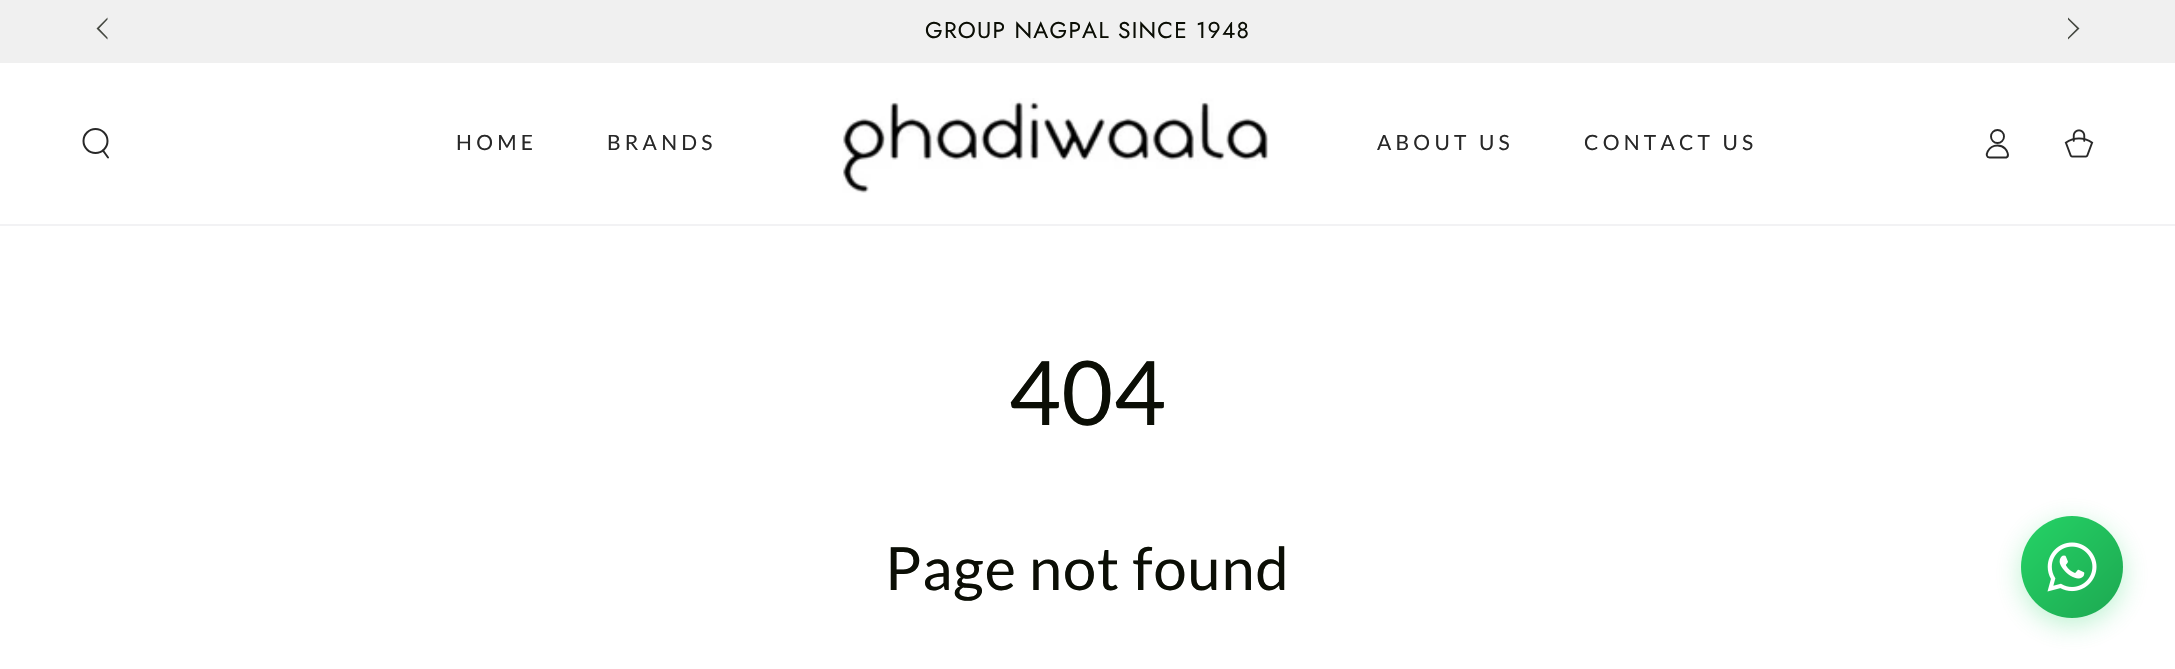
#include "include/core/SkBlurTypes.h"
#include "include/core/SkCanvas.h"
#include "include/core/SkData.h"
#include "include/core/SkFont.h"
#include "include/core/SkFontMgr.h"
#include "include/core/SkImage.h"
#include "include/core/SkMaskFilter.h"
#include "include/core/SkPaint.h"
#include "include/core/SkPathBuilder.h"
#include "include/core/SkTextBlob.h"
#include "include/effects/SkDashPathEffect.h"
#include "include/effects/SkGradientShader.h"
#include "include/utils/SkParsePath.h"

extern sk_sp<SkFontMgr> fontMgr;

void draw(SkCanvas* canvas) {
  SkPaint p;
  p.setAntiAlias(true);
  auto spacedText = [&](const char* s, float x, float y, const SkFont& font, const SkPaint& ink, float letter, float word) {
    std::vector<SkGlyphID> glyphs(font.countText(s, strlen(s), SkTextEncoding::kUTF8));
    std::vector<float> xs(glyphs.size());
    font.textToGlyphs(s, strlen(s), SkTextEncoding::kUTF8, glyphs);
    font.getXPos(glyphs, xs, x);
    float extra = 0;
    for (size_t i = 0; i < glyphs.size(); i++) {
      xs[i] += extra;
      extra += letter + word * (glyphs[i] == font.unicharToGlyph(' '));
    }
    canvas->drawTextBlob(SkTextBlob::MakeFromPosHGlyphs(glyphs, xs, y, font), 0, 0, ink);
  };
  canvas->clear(SK_ColorWHITE);
  p.setColor(SkColorSetRGB(240, 240, 240));
  canvas->drawRect(SkRect::MakeLTRB(0, 0, 2175, 63), p);
  p.setColor(SkColorSetRGB(68, 71, 64));
  canvas->drawPath(SkPathBuilder(SkPathFillType::kEvenOdd).moveTo(96.5f, 28.5f).lineTo(107.5f, 39.5f).lineTo(107.5f, 37.5f).lineTo(99, 28.5f).lineTo(107.5f, 19.5f).lineTo(107.5f, 17.5f).close().detach(), p);
  canvas->drawPath(SkPathBuilder(SkPathFillType::kEvenOdd).moveTo(2079.5f, 28.5f).lineTo(2068, 39.5f).lineTo(2068, 37.5f).lineTo(2077, 28.5f).lineTo(2068, 19.5f).lineTo(2068, 17.5f).close().detach(), p);
  p.setColor(SkColorSetRGB(242, 242, 244));
  canvas->drawRect(SkRect::MakeLTRB(0, 224, 2175, 226), p);
  p.setStyle(SkPaint::kStroke_Style);
  p.setStrokeWidth(2);
  p.setColor(SkColorSetRGB(40, 40, 40));
  canvas->drawCircle(95.5f, 141, 12, p);
  p.setStrokeCap(SkPaint::kRound_Cap);
  canvas->drawPath(SkPathBuilder().moveTo(103, 150.5f).lineTo(108, 157.5f).detach(), p);
  canvas->drawImageRect(SkImages::DeferredFromEncodedData(SkData::MakeFromFileName("images/1.png")), SkRect::MakeLTRB(842, 98, 1269, 193), SkSamplingOptions());
  p.setStrokeWidth(1.9f);
  p.setStrokeCap(SkPaint::kButt_Cap);
  canvas->drawPath(SkPathBuilder().moveTo(1997.5f, 145.5f).cubicTo(1988, 145.5f, 1983.5f, 157.5f, 1989.5f, 157.5f).lineTo(2006.5f, 157.5f).cubicTo(2010, 156, 2006.5f, 150, 2005, 148.5f).cubicTo(2003, 146.5f, 2000, 145.5f, 1997.5f, 145.5f).close().detach(), p);
  canvas->drawCircle(1997.5f, 136.5f, 6.5f, p);
  canvas->drawImageRect(SkImages::DeferredFromEncodedData(SkData::MakeFromFileName("images/2.png")), SkRect::MakeLTRB(2064, 129, 2094, 158), SkSamplingOptions());
  p.setStyle(SkPaint::kFill_Style);
  p.setColor(SkColorSetARGB(77, 37, 211, 102));
  p.setMaskFilter(SkMaskFilter::MakeBlur(kNormal_SkBlurStyle, 13));
  canvas->drawRoundRect(SkRect::MakeLTRB(2021, 523, 2123, 625), 51, 51, p);
  p.setMaskFilter(nullptr);
  {
    const SkColor colors[] = {SkColorSetRGB(37, 211, 102), SkColorSetRGB(29, 168, 81)};
    const float stops[] = {0, 1};
    const SkPoint ends[] = {{2021, 516}, {2123, 618}};
    p.setShader(SkGradientShader::MakeLinear(ends, colors, stops, 2, SkTileMode::kClamp));
    p.setAlpha(255);
  }
  canvas->drawCircle(2072, 567, 51, p);
  canvas->drawImageRect(SkImages::DeferredFromEncodedData(SkData::MakeFromFileName("images/3.png")), SkRect::MakeLTRB(2047, 542, 2097, 592), SkSamplingOptions());
  SkFont font1(fontMgr->matchFamilyStyle("Jost", SkFontStyle::Normal()), 22.75f);
  font1.setSubpixel(true);
  p.setShader(nullptr);
  p.setColor(SkColorSetRGB(11, 14, 5));
  spacedText("GROUP NAGPAL SINCE 1948", 925, 38, font1, p, 1.25f, 0);
  SkFont font2(fontMgr->matchFamilyStyle("Lato", SkFontStyle::Normal()), 21);
  font2.setSubpixel(true);
  p.setColor(SkColorSetRGB(40, 40, 40));
  spacedText("HOME", 456, 150, font2, p, 4.25f, 0);
  spacedText("BRANDS", 607, 150, font2, p, 4.25f, 0);
  spacedText("ABOUT US", 1377, 150, font2, p, 4.25f, 0);
  spacedText("CONTACT US", 1584, 150, font2, p, 4.25f, 0);
  SkFont font3(fontMgr->matchFamilyStyle("Lato", SkFontStyle::Normal()), 89);
  font3.setSubpixel(true);
  p.setColor(SkColorSetRGB(11, 14, 5));
  spacedText("404", 1009, 425, font3, p, 0.9f, 0);
  SkFont font4(fontMgr->matchFamilyStyle("Lato", SkFontStyle::Normal()), 59.5f);
  font4.setSubpixel(true);
  spacedText("Page not found", 885, 590, font4, p, 0.9f, 0);
}
